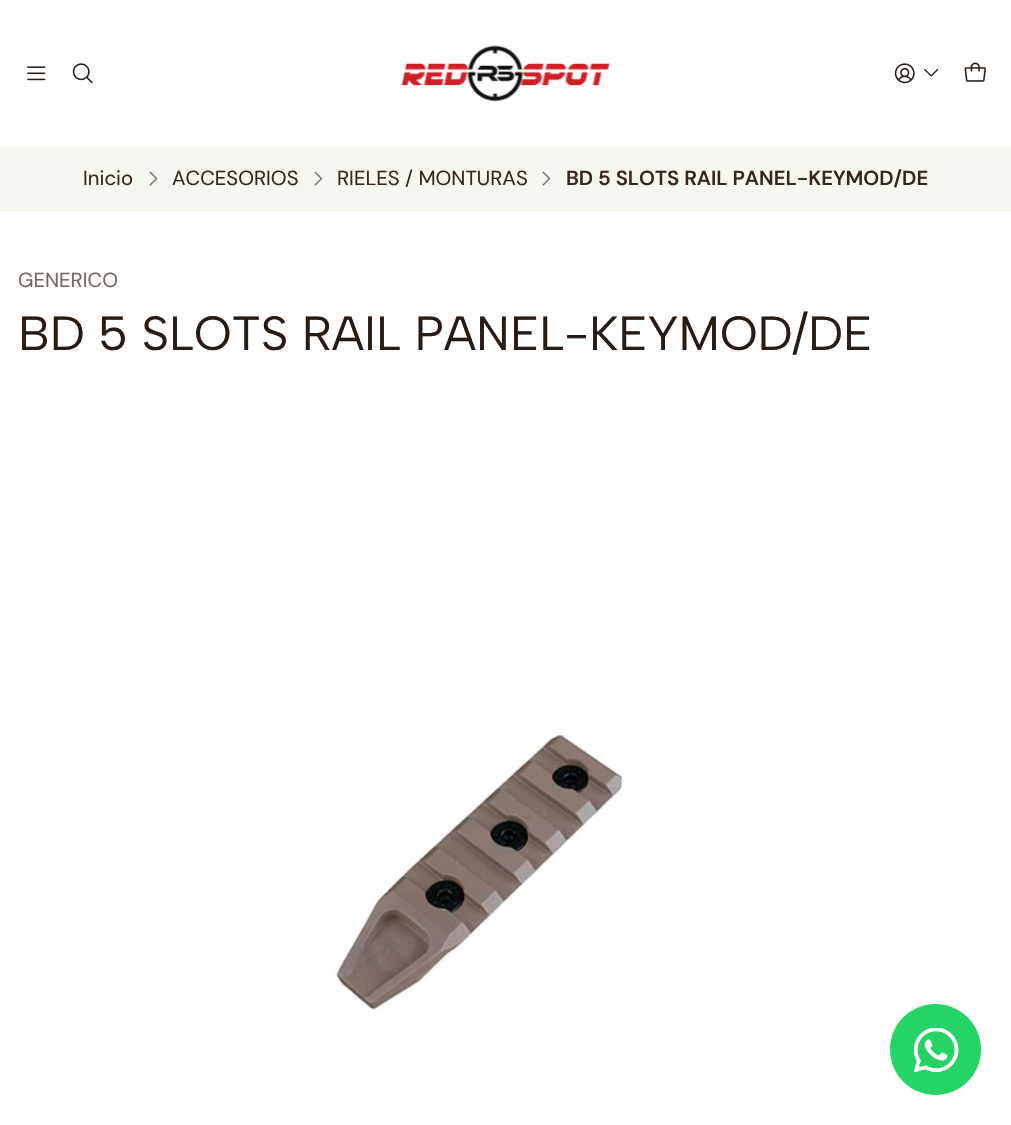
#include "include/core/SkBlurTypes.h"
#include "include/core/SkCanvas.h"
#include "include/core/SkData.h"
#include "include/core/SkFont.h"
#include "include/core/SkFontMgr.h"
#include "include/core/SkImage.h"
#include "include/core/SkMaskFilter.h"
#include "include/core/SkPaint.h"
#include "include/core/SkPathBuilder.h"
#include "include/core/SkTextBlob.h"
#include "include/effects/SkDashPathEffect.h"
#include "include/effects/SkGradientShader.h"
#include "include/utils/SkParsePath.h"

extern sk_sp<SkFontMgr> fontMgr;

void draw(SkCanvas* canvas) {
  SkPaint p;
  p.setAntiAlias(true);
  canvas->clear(SK_ColorWHITE);
  canvas->drawImageRect(SkImages::DeferredFromEncodedData(SkData::MakeFromFileName("images/1.png")), SkRect::MakeLTRB(27, 66, 46, 81), SkSamplingOptions());
  canvas->drawImageRect(SkImages::DeferredFromEncodedData(SkData::MakeFromFileName("images/2.png")), SkRect::MakeLTRB(72, 63, 93, 84), SkSamplingOptions());
  canvas->drawImageRect(SkImages::DeferredFromEncodedData(SkData::MakeFromFileName("images/3.png")), SkRect::MakeLTRB(401, 45, 610, 102), SkSamplingOptions());
  canvas->drawImageRect(SkImages::DeferredFromEncodedData(SkData::MakeFromFileName("images/4.png")), SkRect::MakeLTRB(894, 63, 915, 84), SkSamplingOptions());
  canvas->drawImageRect(SkImages::DeferredFromEncodedData(SkData::MakeFromFileName("images/5.png")), SkRect::MakeLTRB(924, 68, 939, 77), SkSamplingOptions());
  canvas->drawImageRect(SkImages::DeferredFromEncodedData(SkData::MakeFromFileName("images/6.png")), SkRect::MakeLTRB(964, 62, 986, 82), SkSamplingOptions());
  p.setColor(SkColorSetRGB(247, 247, 242));
  canvas->drawRect(SkRect::MakeLTRB(0, 147, 1011, 212), p);
  canvas->drawImageRect(SkImages::DeferredFromEncodedData(SkData::MakeFromFileName("images/7.png")), SkRect::MakeLTRB(149, 171, 158, 186), SkSamplingOptions());
  canvas->drawImageRect(SkImages::DeferredFromEncodedData(SkData::MakeFromFileName("images/7.png")), SkRect::MakeLTRB(314, 171, 323, 186), SkSamplingOptions());
  canvas->drawImageRect(SkImages::DeferredFromEncodedData(SkData::MakeFromFileName("images/7.png")), SkRect::MakeLTRB(542, 171, 551, 186), SkSamplingOptions());
  canvas->drawImageRect(SkImages::DeferredFromEncodedData(SkData::MakeFromFileName("images/8.png")), SkRect::MakeLTRB(333, 731, 625, 1012), SkSamplingOptions());
  p.setColor(SkColorSetRGB(37, 211, 102));
  canvas->drawCircle(935.5f, 1049.5f, 45.5f, p);
  canvas->drawImageRect(SkImages::DeferredFromEncodedData(SkData::MakeFromFileName("images/9.png")), SkRect::MakeLTRB(914, 1028, 959, 1073), SkSamplingOptions());
  SkFont font1(fontMgr->matchFamilyStyle("DM Sans", SkFontStyle::Normal()), 20.4f);
  font1.setSubpixel(true);
  p.setColor(SkColorSetRGB(53, 39, 29));
  canvas->drawString("Inicio", 83, 185, font1, p);
  canvas->drawString("ACCESORIOS", 172, 185, font1, p);
  canvas->drawString("RIELES / MONTURAS", 337, 185, font1, p);
  SkFont font2(fontMgr->matchFamilyStyle("DM Sans", SkFontStyle(600, SkFontStyle::kNormal_Width, SkFontStyle::kUpright_Slant)), 20.4f);
  font2.setSubpixel(true);
  canvas->drawString("BD 5 SLOTS RAIL PANEL-KEYMOD/DE", 566, 185, font2, p);
  p.setColor(SkColorSetRGB(114, 104, 97));
  canvas->drawString("GENERICO", 18, 287, font1, p);
  SkFont font3(fontMgr->matchFamilyStyle("Albert Sans", SkFontStyle::Normal()), 48);
  font3.setSubpixel(true);
  p.setColor(SkColorSetRGB(38, 28, 21));
  canvas->drawString("BD 5 SLOTS RAIL PANEL-KEYMOD/DE", 18, 350, font3, p);
}
